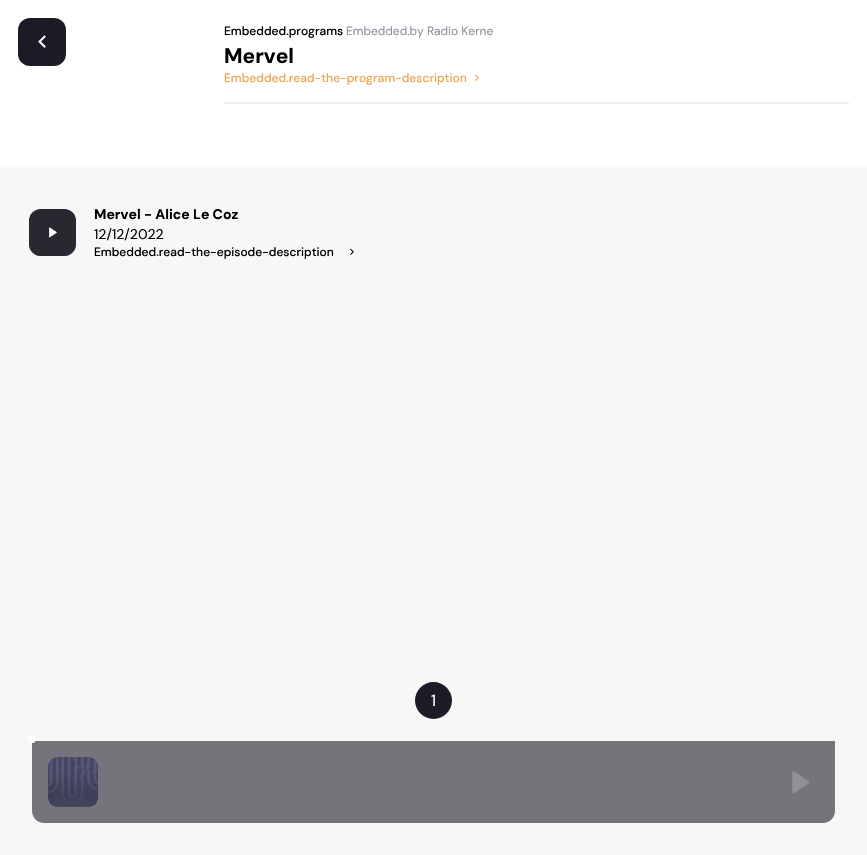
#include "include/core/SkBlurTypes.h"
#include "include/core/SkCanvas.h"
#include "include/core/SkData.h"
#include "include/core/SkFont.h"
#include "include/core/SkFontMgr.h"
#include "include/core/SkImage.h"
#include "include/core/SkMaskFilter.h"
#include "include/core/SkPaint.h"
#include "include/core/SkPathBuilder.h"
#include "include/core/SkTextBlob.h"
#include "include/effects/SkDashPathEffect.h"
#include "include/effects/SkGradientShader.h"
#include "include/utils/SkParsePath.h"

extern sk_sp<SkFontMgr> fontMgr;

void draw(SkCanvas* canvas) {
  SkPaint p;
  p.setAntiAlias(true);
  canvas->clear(SK_ColorWHITE);
  p.setColor(SkColorSetRGB(28, 28, 39));
  canvas->drawRoundRect(SkRect::MakeLTRB(18, 18, 66, 66), 12, 12, p);
  canvas->drawImageRect(SkImages::DeferredFromEncodedData(SkData::MakeFromFileName("images/1.png")), SkRect::MakeLTRB(38, 35, 46, 48), SkSamplingOptions());
  canvas->drawImageRect(SkImages::DeferredFromEncodedData(SkData::MakeFromFileName("images/2.png")), SkRect::MakeLTRB(475, 74, 479, 81), SkSamplingOptions());
  p.setColor(SkColorSetRGB(238, 238, 238));
  canvas->drawRect(SkRect::MakeLTRB(224, 102, 849, 104), p);
  p.setColor(SkColorSetRGB(247, 247, 247));
  canvas->drawRect(SkRect::MakeLTRB(0, 166, 867, 855), p);
  p.setColor(SkColorSetRGB(86, 87, 90));
  canvas->drawRoundRect(SkRect::MakeLTRB(29, 209, 76, 256), 12, 12, p);
  p.setColor(SkColorSetARGB(204, 28, 28, 39));
  canvas->drawRoundRect(SkRect::MakeLTRB(29, 209, 76, 256), 12, 12, p);
  canvas->drawImageRect(SkImages::DeferredFromEncodedData(SkData::MakeFromFileName("images/3.png")), SkRect::MakeLTRB(49, 227, 57, 238), SkSamplingOptions());
  canvas->drawImageRect(SkImages::DeferredFromEncodedData(SkData::MakeFromFileName("images/4.png")), SkRect::MakeLTRB(350, 248, 354, 255), SkSamplingOptions());
  p.setColor(SkColorSetRGB(28, 28, 39));
  canvas->drawCircle(433.5f, 700.5f, 18.5f, p);
  p.setColor(SkColorSetRGB(116, 116, 122));
  canvas->drawPath(SkPathBuilder().moveTo(32, 741).lineTo(835, 741).lineTo(835, 811).cubicTo(835, 817.5f, 829.5f, 823, 823, 823).lineTo(44, 823).cubicTo(37.5f, 823, 32, 817.5f, 32, 811).close().detach(), p);
  p.setColor(SK_ColorWHITE);
  canvas->drawCircle(32, 739, 4, p);
  canvas->drawRoundRect(SkRect::MakeLTRB(48, 757, 98, 807), 8, 8, p);
  canvas->drawImageRect(SkImages::DeferredFromEncodedData(SkData::MakeFromFileName("images/5.png")), SkRect::MakeLTRB(48, 757, 98, 807), SkSamplingOptions());
  canvas->drawImageRect(SkImages::DeferredFromEncodedData(SkData::MakeFromFileName("images/6.png")), SkRect::MakeLTRB(792, 771, 810, 794), SkSamplingOptions());
  SkFont font1(fontMgr->matchFamilyStyle("DM Sans", SkFontStyle(500, SkFontStyle::kNormal_Width, SkFontStyle::kUpright_Slant)), 12);
  font1.setSubpixel(true);
  p.setColor(SK_ColorBLACK);
  canvas->drawString("Embedded.programs", 224, 35, font1, p);
  SkFont font2(fontMgr->matchFamilyStyle("DM Sans", SkFontStyle::Normal()), 12);
  font2.setSubpixel(true);
  p.setColor(SkColorSetRGB(145, 145, 159));
  canvas->drawString("Embedded.by Radio Kerne", 346, 35, font2, p);
  SkFont font3(fontMgr->matchFamilyStyle("DM Sans", SkFontStyle::Bold()), 21);
  font3.setSubpixel(true);
  p.setColor(SK_ColorBLACK);
  canvas->drawString("Mervel", 224, 63, font3, p);
  p.setColor(SkColorSetRGB(238, 165, 88));
  canvas->drawString("Embedded.read-the-program-description", 224, 82, font1, p);
  SkFont font4(fontMgr->matchFamilyStyle("DM Sans", SkFontStyle::Bold()), 14);
  font4.setSubpixel(true);
  p.setColor(SK_ColorBLACK);
  canvas->drawString("Mervel - Alice Le Coz", 94, 219, font4, p);
  SkFont font5(fontMgr->matchFamilyStyle("DM Sans", SkFontStyle::Normal()), 14);
  font5.setSubpixel(true);
  canvas->drawString("12/12/2022", 94, 239, font5, p);
  canvas->drawString("Embedded.read-the-episode-description", 94, 256, font1, p);
  SkFont font6(fontMgr->matchFamilyStyle("DM Sans", SkFontStyle::Normal()), 16);
  font6.setSubpixel(true);
  p.setColor(SK_ColorWHITE);
  canvas->drawString("1", 431, 706, font6, p);
}
